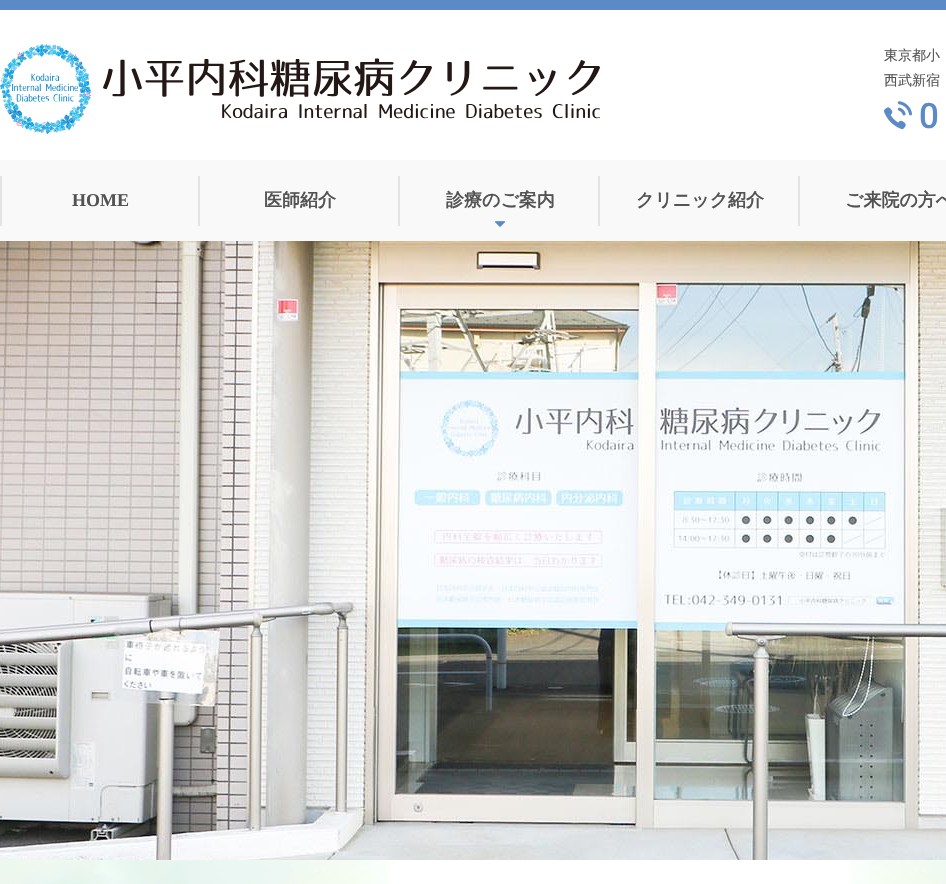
#include "include/core/SkBlurTypes.h"
#include "include/core/SkCanvas.h"
#include "include/core/SkData.h"
#include "include/core/SkFont.h"
#include "include/core/SkFontMgr.h"
#include "include/core/SkImage.h"
#include "include/core/SkMaskFilter.h"
#include "include/core/SkPaint.h"
#include "include/core/SkPathBuilder.h"
#include "include/core/SkTextBlob.h"
#include "include/effects/SkDashPathEffect.h"
#include "include/effects/SkGradientShader.h"
#include "include/utils/SkParsePath.h"

extern sk_sp<SkFontMgr> fontMgr;

void draw(SkCanvas* canvas) {
  SkPaint p;
  p.setAntiAlias(true);
  canvas->clear(SK_ColorWHITE);
  p.setColor(SkColorSetRGB(92, 138, 199));
  canvas->drawRect(SkRect::MakeLTRB(0, 0, 946, 10), p);
  canvas->drawImageRect(SkImages::DeferredFromEncodedData(SkData::MakeFromFileName("images/1.png")), SkRect::MakeLTRB(0, 44, 600, 134), SkSamplingOptions());
  canvas->drawImageRect(SkImages::DeferredFromEncodedData(SkData::MakeFromFileName("images/2.png")), SkRect::MakeLTRB(884, 101, 912, 130), SkSamplingOptions());
  p.setColor(SkColorSetRGB(249, 249, 249));
  canvas->drawRect(SkRect::MakeLTRB(0, 160, 946, 241), p);
  p.setColor(SkColorSetRGB(227, 227, 227));
  canvas->drawRect(SkRect::MakeLTRB(0, 176, 2, 226), p);
  canvas->drawRect(SkRect::MakeLTRB(198, 176, 200, 226), p);
  canvas->drawRect(SkRect::MakeLTRB(398, 176, 400, 226), p);
  canvas->drawRect(SkRect::MakeLTRB(598, 176, 600, 226), p);
  canvas->drawImageRect(SkImages::DeferredFromEncodedData(SkData::MakeFromFileName("images/3.png")), SkRect::MakeLTRB(494, 221, 506, 227), SkSamplingOptions());
  canvas->drawRect(SkRect::MakeLTRB(798, 176, 800, 226), p);
  canvas->drawImageRect(SkImages::DeferredFromEncodedData(SkData::MakeFromFileName("images/4.png")), SkRect::MakeLTRB(0, 241, 946, 860), SkSamplingOptions());
  canvas->drawImageRect(SkImages::DeferredFromEncodedData(SkData::MakeFromFileName("images/5.png")), SkRect::MakeLTRB(0, 860, 390, 884), SkSamplingOptions());
  canvas->drawImageRect(SkImages::DeferredFromEncodedData(SkData::MakeFromFileName("images/6.png")), SkRect::MakeLTRB(850, 860, 946, 884), SkSamplingOptions());
  SkFont font1(fontMgr->matchFamilyStyle("WenQuanYi Zen Hei", SkFontStyle(500, SkFontStyle::kNormal_Width, SkFontStyle::kUpright_Slant)), 14);
  font1.setSubpixel(true);
  p.setColor(SkColorSetRGB(83, 83, 83));
  canvas->drawString("東京都小", 884, 60, font1, p);
  canvas->drawString("西武新宿", 884, 85, font1, p);
  SkFont font2(fontMgr->matchFamilyStyle("Roboto", SkFontStyle(500, SkFontStyle::kNormal_Width, SkFontStyle::kUpright_Slant)), 35);
  font2.setSubpixel(true);
  p.setColor(SkColorSetRGB(92, 138, 199));
  canvas->drawString("0", 919, 128, font2, p);
  SkFont font3(fontMgr->matchFamilyStyle("Liberation Serif", SkFontStyle::Bold()), 18);
  font3.setSubpixel(true);
  p.setColor(SkColorSetRGB(83, 83, 83));
  canvas->drawString("HOME", 72, 206, font3, p);
  SkFont font4(fontMgr->matchFamilyStyle("WenQuanYi Zen Hei", SkFontStyle::Bold()), 18);
  font4.setSubpixel(true);
  canvas->drawString("医師紹介", 264, 206, font4, p);
  canvas->drawString("診療のご案内", 446, 206, font4, p);
  canvas->drawString("クリニック紹介", 636, 206, font4, p);
  canvas->drawString("ご来院の方へ", 845, 206, font4, p);
}
